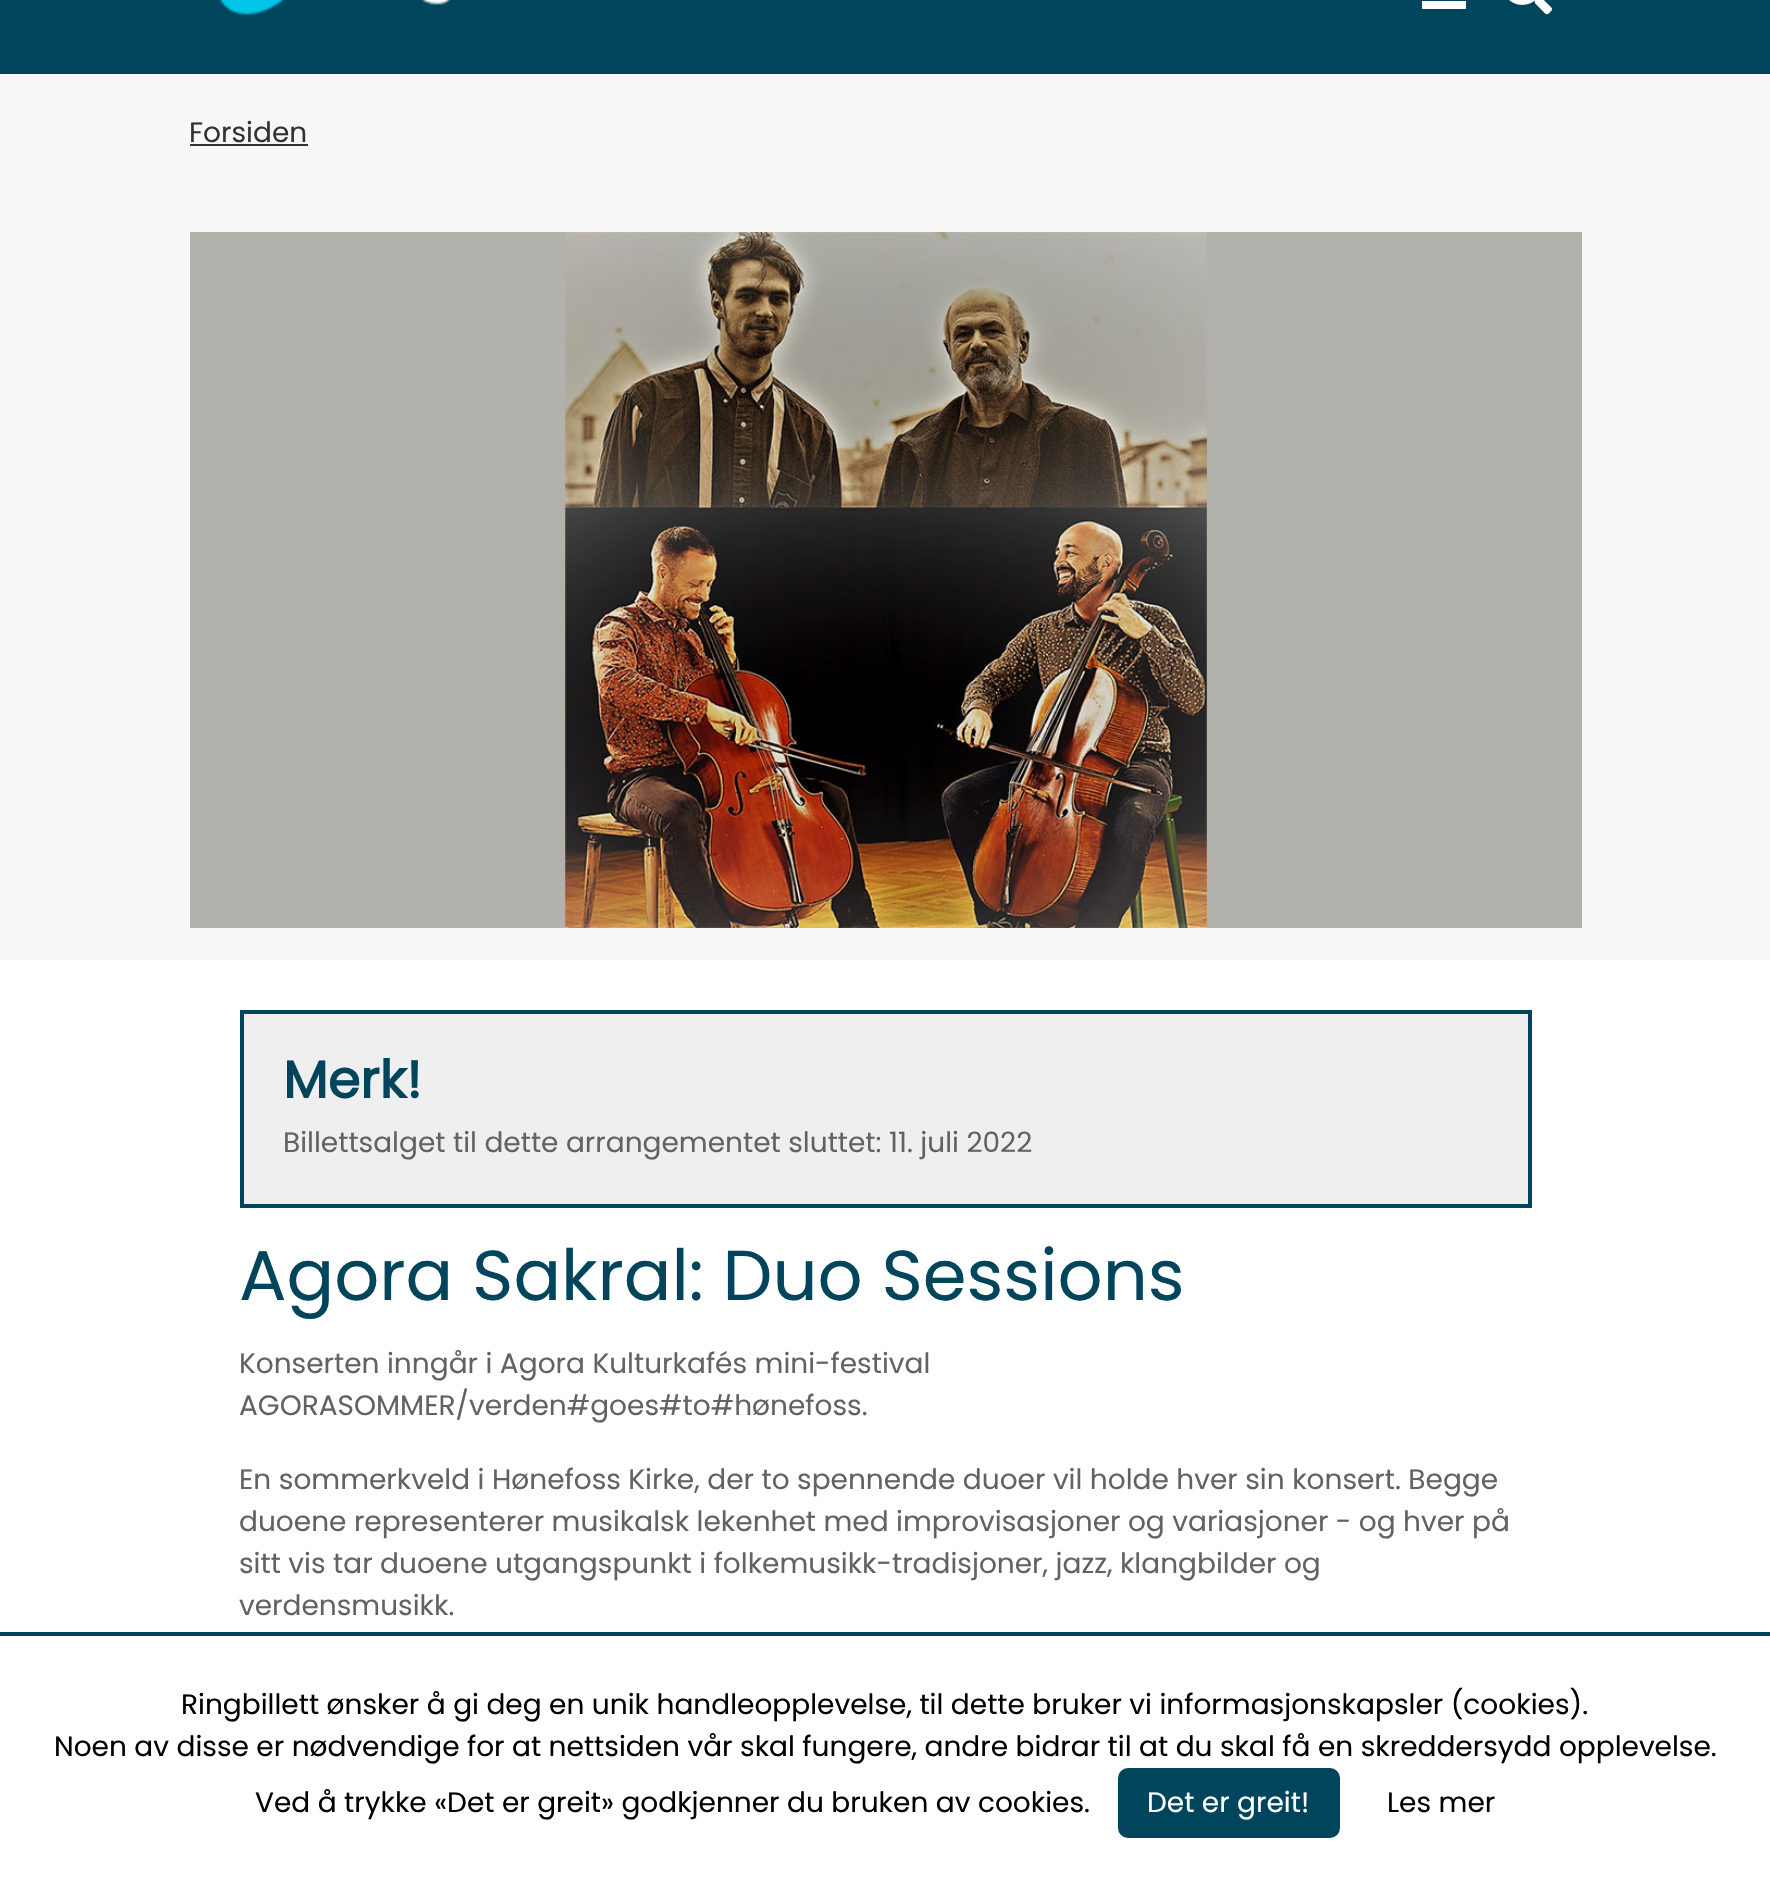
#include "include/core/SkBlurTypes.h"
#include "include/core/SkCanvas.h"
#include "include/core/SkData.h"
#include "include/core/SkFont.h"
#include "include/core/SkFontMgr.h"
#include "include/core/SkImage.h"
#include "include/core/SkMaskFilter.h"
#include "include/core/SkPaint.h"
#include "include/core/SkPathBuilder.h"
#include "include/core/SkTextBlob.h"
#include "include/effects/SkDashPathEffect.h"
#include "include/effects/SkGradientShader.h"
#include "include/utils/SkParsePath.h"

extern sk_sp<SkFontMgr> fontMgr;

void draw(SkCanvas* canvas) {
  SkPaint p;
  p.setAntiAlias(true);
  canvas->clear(SK_ColorWHITE);
  p.setColor(SkColorSetRGB(1, 69, 92));
  canvas->drawRect(SkRect::MakeLTRB(0, 0, 1770, 74), p);
  canvas->drawImageRect(SkImages::DeferredFromEncodedData(SkData::MakeFromFileName("images/1.png")), SkRect::MakeLTRB(219, 0, 451, 15), SkSamplingOptions());
  p.setColor(SK_ColorWHITE);
  canvas->drawRect(SkRect::MakeLTRB(1422, 1, 1466, 9), p);
  canvas->drawImageRect(SkImages::DeferredFromEncodedData(SkData::MakeFromFileName("images/2.png")), SkRect::MakeLTRB(1509, 0, 1552, 15), SkSamplingOptions());
  p.setColor(SkColorSetRGB(247, 247, 247));
  canvas->drawRect(SkRect::MakeLTRB(0, 74, 1770, 960), p);
  p.setColor(SkColorSetRGB(51, 51, 51));
  canvas->drawRect(SkRect::MakeLTRB(190, 144, 308, 146), p);
  canvas->drawImageRect(SkImages::DeferredFromEncodedData(SkData::MakeFromFileName("images/3.png")), SkRect::MakeLTRB(190, 232, 1582, 928), SkSamplingOptions());
  p.setColor(SkColorSetRGB(239, 239, 239));
  canvas->drawRect(SkRect::MakeLTRB(242, 1012, 1530, 1206), p);
  p.setStyle(SkPaint::kStroke_Style);
  p.setStrokeWidth(4);
  p.setColor(SkColorSetRGB(1, 69, 92));
  canvas->drawRect(SkRect::MakeLTRB(242, 1012, 1530, 1206), p);
  p.setStyle(SkPaint::kFill_Style);
  canvas->drawRect(SkRect::MakeLTRB(0, 1632, 1770, 1636), p);
  canvas->drawRoundRect(SkRect::MakeLTRB(1118, 1768, 1340, 1838), 10, 10, p);
  SkFont font1(fontMgr->matchFamilyStyle("Poppins", SkFontStyle::Normal()), 28);
  font1.setSubpixel(true);
  p.setColor(SkColorSetRGB(51, 51, 51));
  canvas->drawString("Forsiden", 189, 142, font1, p);
  SkFont font2(fontMgr->matchFamilyStyle("Poppins", SkFontStyle::Bold()), 52);
  font2.setSubpixel(true);
  p.setColor(SkColorSetRGB(1, 69, 92));
  canvas->drawString("Merk!", 283, 1098, font2, p);
  p.setColor(SkColorSetRGB(98, 98, 98));
  canvas->drawString("Billettsalget til dette arrangementet sluttet: 11. juli 2022", 283, 1152, font1, p);
  SkFont font3(fontMgr->matchFamilyStyle("Poppins", SkFontStyle::Normal()), 70.5f);
  font3.setSubpixel(true);
  p.setColor(SkColorSetRGB(1, 69, 92));
  canvas->drawString("Agora Sakral: Duo Sessions", 239, 1300, font3, p);
  p.setColor(SkColorSetRGB(98, 98, 98));
  canvas->drawString("Konserten inngår i Agora Kulturkafés mini-festival", 239, 1373, font1, p);
  canvas->drawString("AGORASOMMER/verden#goes#to#hønefoss.", 239, 1415, font1, p);
  canvas->drawString("En sommerkveld i Hønefoss Kirke, der to spennende duoer vil holde hver sin konsert. Begge", 239, 1489, font1, p);
  canvas->drawString("duoene representerer musikalsk lekenhet med improvisasjoner og variasjoner - og hver på", 239, 1531, font1, p);
  canvas->drawString("sitt vis tar duoene utgangspunkt i folkemusikk-tradisjoner, jazz, klangbilder og", 239, 1573, font1, p);
  canvas->drawString("verdensmusikk.", 239, 1615, font1, p);
  p.setColor(SK_ColorBLACK);
  canvas->drawString("Ringbillett ønsker å gi deg en unik handleopplevelse, til dette bruker vi informasjonskapsler (cookies).", 181, 1714, font1, p);
  canvas->drawString("Noen av disse er nødvendige for at nettsiden vår skal fungere, andre bidrar til at du skal få en skreddersydd opplevelse.", 54, 1756, font1, p);
  canvas->drawString("Ved å trykke «Det er greit» godkjenner du bruken av cookies.", 255, 1812, font1, p);
  p.setColor(SK_ColorWHITE);
  canvas->drawString("Det er greit!", 1147, 1812, font1, p);
  p.setColor(SK_ColorBLACK);
  canvas->drawString("Les mer", 1387, 1812, font1, p);
}
